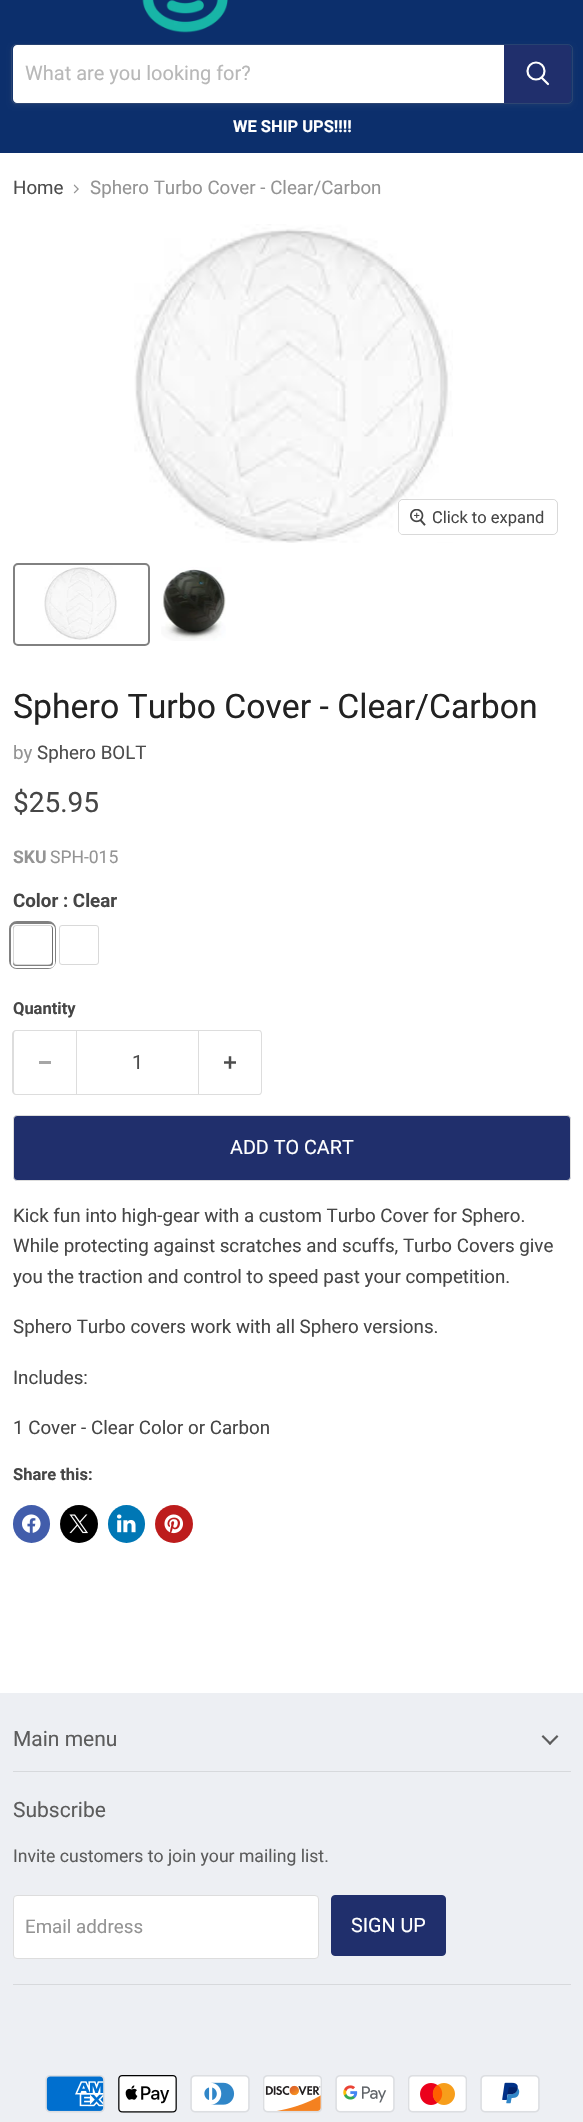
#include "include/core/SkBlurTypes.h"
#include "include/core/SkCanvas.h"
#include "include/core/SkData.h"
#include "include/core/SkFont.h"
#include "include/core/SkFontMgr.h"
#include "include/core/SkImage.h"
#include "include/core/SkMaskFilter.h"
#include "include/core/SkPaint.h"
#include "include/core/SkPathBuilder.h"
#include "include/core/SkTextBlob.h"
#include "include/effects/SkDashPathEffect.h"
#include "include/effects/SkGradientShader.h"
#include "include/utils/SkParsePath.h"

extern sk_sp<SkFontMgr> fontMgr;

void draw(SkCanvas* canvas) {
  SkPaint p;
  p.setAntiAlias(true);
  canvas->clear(SK_ColorWHITE);
  p.setColor(SkColorSetRGB(12, 47, 108));
  canvas->drawRect(SkRect::MakeLTRB(0, 0, 583, 153), p);
  canvas->drawImageRect(SkImages::DeferredFromEncodedData(SkData::MakeFromFileName("images/1.png")), SkRect::MakeLTRB(142, 0, 228, 33), SkSamplingOptions());
  p.setColor(SkColorSetARGB(28, 128, 128, 128));
  p.setMaskFilter(SkMaskFilter::MakeBlur(kNormal_SkBlurStyle, 2));
  canvas->drawRoundRect(SkRect::MakeLTRB(11, 46, 573, 106), 5, 5, p);
  p.setMaskFilter(nullptr);
  p.setStyle(SkPaint::kStroke_Style);
  p.setStrokeWidth(1);
  p.setColor(SkColorSetARGB(51, 128, 128, 128));
  canvas->drawRoundRect(SkRect::MakeLTRB(11.5f, 44.5f, 572.5f, 103.5f), 4.5f, 4.5f, p);
  p.setStyle(SkPaint::kFill_Style);
  p.setColor(SK_ColorWHITE);
  canvas->drawPath(SkPathBuilder().moveTo(17, 45).lineTo(504, 45).lineTo(504, 103).lineTo(17, 103).cubicTo(15, 103, 13, 101, 13, 99).lineTo(13, 49).cubicTo(13, 47, 15, 45, 17, 45).close().detach(), p);
  p.setColor(SkColorSetRGB(32, 47, 108));
  canvas->drawPath(SkPathBuilder().moveTo(504.5f, 45.5f).lineTo(567, 45.5f).cubicTo(569, 45.5f, 570.5f, 47, 570.5f, 49).lineTo(570.5f, 99).cubicTo(570.5f, 101, 569, 102.5f, 567, 102.5f).lineTo(504.5f, 102.5f).close().detach(), p);
  p.setStyle(SkPaint::kStroke_Style);
  canvas->drawPath(SkPathBuilder().moveTo(504.5f, 45.5f).lineTo(567, 45.5f).cubicTo(569, 45.5f, 570.5f, 47, 570.5f, 49).lineTo(570.5f, 99).cubicTo(570.5f, 101, 569, 102.5f, 567, 102.5f).lineTo(504.5f, 102.5f).close().detach(), p);
  p.setStrokeWidth(2.2f);
  p.setStrokeCap(SkPaint::kRound_Cap);
  p.setColor(SK_ColorWHITE);
  canvas->drawPath(SkPathBuilder().moveTo(548, 84).lineTo(542, 78).detach(), p);
  p.setStrokeCap(SkPaint::kButt_Cap);
  canvas->drawCircle(536, 71, 8.5f, p);
  canvas->drawImageRect(SkImages::DeferredFromEncodedData(SkData::MakeFromFileName("images/2.png")), SkRect::MakeLTRB(73, 184, 79, 194), SkSamplingOptions());
  canvas->drawImageRect(SkImages::DeferredFromEncodedData(SkData::MakeFromFileName("images/3.png")), SkRect::MakeLTRB(134, 224, 453, 543), SkSamplingOptions());
  p.setStrokeWidth(1);
  p.setColor(SkColorSetARGB(38, 0, 0, 0));
  canvas->drawRoundRect(SkRect::MakeLTRB(398.5f, 499.5f, 557.5f, 534.5f), 4.5f, 4.5f, p);
  p.setStyle(SkPaint::kFill_Style);
  p.setColor(SkColorSetARGB(230, 255, 255, 255));
  canvas->drawRoundRect(SkRect::MakeLTRB(399, 500, 556, 534), 4, 4, p);
  canvas->drawImageRect(SkImages::DeferredFromEncodedData(SkData::MakeFromFileName("images/4.png")), SkRect::MakeLTRB(410, 509, 426, 526), SkSamplingOptions());
  p.setStyle(SkPaint::kStroke_Style);
  p.setStrokeWidth(2);
  p.setColor(SkColorSetRGB(129, 129, 129));
  canvas->drawRoundRect(SkRect::MakeLTRB(14, 564, 149, 645), 4, 4, p);
  canvas->drawImageRect(SkImages::DeferredFromEncodedData(SkData::MakeFromFileName("images/5.png")), SkRect::MakeLTRB(44, 566, 117, 640), SkSamplingOptions());
  canvas->drawImageRect(SkImages::DeferredFromEncodedData(SkData::MakeFromFileName("images/6.png")), SkRect::MakeLTRB(161, 567, 226, 641), SkSamplingOptions());
  p.setStrokeWidth(4);
  canvas->drawRoundRect(SkRect::MakeLTRB(11, 923, 54, 967), 6, 6, p);
  p.setStrokeWidth(2);
  p.setColor(SK_ColorWHITE);
  canvas->drawRoundRect(SkRect::MakeLTRB(12, 925, 54, 967), 4, 4, p);
  p.setStrokeWidth(1);
  p.setColor(SkColorSetARGB(38, 0, 0, 0));
  canvas->drawRoundRect(SkRect::MakeLTRB(13.5f, 925.5f, 52.5f, 964.5f), 2.5f, 2.5f, p);
  p.setColor(SkColorSetRGB(217, 217, 217));
  canvas->drawRoundRect(SkRect::MakeLTRB(59.5f, 925.5f, 98.5f, 964.5f), 2.5f, 2.5f, p);
  p.setStyle(SkPaint::kFill_Style);
  p.setColor(SkColorSetRGB(221, 221, 221));
  canvas->drawPath(SkPathBuilder(SkPathFillType::kEvenOdd).moveTo(16, 1030).lineTo(76, 1030).lineTo(76, 1095).lineTo(16, 1095).cubicTo(14, 1095, 12, 1093, 12, 1091).lineTo(12, 1034).cubicTo(12, 1032, 14, 1030, 16, 1030).close().moveTo(16, 1031).lineTo(76, 1031).lineTo(76, 1094).lineTo(16, 1094).cubicTo(15, 1094, 14, 1093, 14, 1091).lineTo(14, 1034).cubicTo(14, 1032, 15, 1031, 16, 1031).close().detach(), p);
  p.setColor(SkColorSetRGB(166, 166, 166));
  canvas->drawRect(SkRect::MakeLTRB(39, 1061, 51, 1064), p);
  p.setStyle(SkPaint::kStroke_Style);
  p.setColor(SkColorSetRGB(221, 221, 221));
  canvas->drawRect(SkRect::MakeLTRB(76.5f, 1030.5f, 198.5f, 1094.5f), p);
  p.setStyle(SkPaint::kFill_Style);
  canvas->drawPath(SkPathBuilder(SkPathFillType::kEvenOdd).moveTo(199, 1030).lineTo(259, 1030).cubicTo(261, 1030, 262, 1032, 262, 1034).lineTo(262, 1091).cubicTo(262, 1093, 261, 1095, 259, 1095).lineTo(199, 1095).close().moveTo(199, 1031).lineTo(259, 1031).cubicTo(260, 1031, 261, 1032, 261, 1034).lineTo(261, 1091).cubicTo(261, 1093, 260, 1094, 259, 1094).lineTo(199, 1094).close().detach(), p);
  canvas->drawImageRect(SkImages::DeferredFromEncodedData(SkData::MakeFromFileName("images/7.png")), SkRect::MakeLTRB(224, 1056, 236, 1069), SkSamplingOptions());
  p.setColor(SkColorSetRGB(32, 47, 108));
  canvas->drawRoundRect(SkRect::MakeLTRB(13.5f, 1115.5f, 570.5f, 1180.5f), 3.5f, 3.5f, p);
  p.setStyle(SkPaint::kStroke_Style);
  p.setColor(SkColorSetRGB(221, 221, 221));
  canvas->drawRoundRect(SkRect::MakeLTRB(13.5f, 1115.5f, 570.5f, 1180.5f), 3.5f, 3.5f, p);
  p.setStyle(SkPaint::kFill_Style);
  p.setColor(SkColorSetRGB(66, 93, 171));
  canvas->drawRoundRect(SkRect::MakeLTRB(13, 1505, 50, 1543), 18.5f, 18.5f, p);
  canvas->drawImageRect(SkImages::DeferredFromEncodedData(SkData::MakeFromFileName("images/8.png")), SkRect::MakeLTRB(22, 1514, 41, 1533), SkSamplingOptions());
  p.setColor(SK_ColorBLACK);
  canvas->drawCircle(79, 1524, 19, p);
  canvas->drawImageRect(SkImages::DeferredFromEncodedData(SkData::MakeFromFileName("images/9.png")), SkRect::MakeLTRB(69, 1514, 88, 1534), SkSamplingOptions());
  p.setColor(SkColorSetRGB(0, 119, 181));
  canvas->drawRoundRect(SkRect::MakeLTRB(108, 1505, 145, 1543), 18.5f, 18.5f, p);
  canvas->drawImageRect(SkImages::DeferredFromEncodedData(SkData::MakeFromFileName("images/10.png")), SkRect::MakeLTRB(117, 1514, 136, 1533), SkSamplingOptions());
  p.setColor(SkColorSetRGB(189, 28, 28));
  canvas->drawCircle(174, 1524, 19, p);
  canvas->drawImageRect(SkImages::DeferredFromEncodedData(SkData::MakeFromFileName("images/11.png")), SkRect::MakeLTRB(164, 1514, 183, 1534), SkSamplingOptions());
  p.setColor(SkColorSetRGB(237, 239, 243));
  canvas->drawRect(SkRect::MakeLTRB(0, 1693, 583, 2122), p);
  p.setColor(SkColorSetRGB(215, 217, 220));
  canvas->drawRect(SkRect::MakeLTRB(13, 1771, 571, 1772), p);
  canvas->drawImageRect(SkImages::DeferredFromEncodedData(SkData::MakeFromFileName("images/12.png")), SkRect::MakeLTRB(541, 1735, 559, 1745), SkSamplingOptions());
  canvas->drawRect(SkRect::MakeLTRB(13, 1984, 571, 1985), p);
  p.setColor(SK_ColorWHITE);
  canvas->drawRoundRect(SkRect::MakeLTRB(13.5f, 1895.5f, 318.5f, 1958.5f), 3.5f, 3.5f, p);
  p.setStyle(SkPaint::kStroke_Style);
  p.setColor(SkColorSetRGB(221, 221, 221));
  canvas->drawRoundRect(SkRect::MakeLTRB(13.5f, 1895.5f, 318.5f, 1958.5f), 3.5f, 3.5f, p);
  p.setStyle(SkPaint::kFill_Style);
  p.setColor(SkColorSetRGB(32, 47, 108));
  canvas->drawRoundRect(SkRect::MakeLTRB(331.5f, 1895.5f, 445.5f, 1955.5f), 3.5f, 3.5f, p);
  p.setStyle(SkPaint::kStroke_Style);
  canvas->drawRoundRect(SkRect::MakeLTRB(331.5f, 1895.5f, 445.5f, 1955.5f), 3.5f, 3.5f, p);
  canvas->drawImageRect(SkImages::DeferredFromEncodedData(SkData::MakeFromFileName("images/13.png")), SkRect::MakeLTRB(45, 2075, 105, 2113), SkSamplingOptions());
  canvas->drawImageRect(SkImages::DeferredFromEncodedData(SkData::MakeFromFileName("images/14.png")), SkRect::MakeLTRB(118, 2075, 177, 2113), SkSamplingOptions());
  canvas->drawImageRect(SkImages::DeferredFromEncodedData(SkData::MakeFromFileName("images/15.png")), SkRect::MakeLTRB(190, 2075, 250, 2113), SkSamplingOptions());
  canvas->drawImageRect(SkImages::DeferredFromEncodedData(SkData::MakeFromFileName("images/16.png")), SkRect::MakeLTRB(263, 2075, 322, 2113), SkSamplingOptions());
  canvas->drawImageRect(SkImages::DeferredFromEncodedData(SkData::MakeFromFileName("images/17.png")), SkRect::MakeLTRB(335, 2075, 395, 2113), SkSamplingOptions());
  canvas->drawImageRect(SkImages::DeferredFromEncodedData(SkData::MakeFromFileName("images/18.png")), SkRect::MakeLTRB(408, 2075, 467, 2113), SkSamplingOptions());
  canvas->drawImageRect(SkImages::DeferredFromEncodedData(SkData::MakeFromFileName("images/19.png")), SkRect::MakeLTRB(480, 2075, 540, 2113), SkSamplingOptions());
  SkFont font1(fontMgr->matchFamilyStyle("Roboto", SkFontStyle::Normal()), 20);
  font1.setSubpixel(true);
  p.setStyle(SkPaint::kFill_Style);
  p.setColor(SkColorSetRGB(184, 184, 184));
  canvas->drawString("What are you looking for?", 25, 80, font1, p);
  SkFont font2(fontMgr->matchFamilyStyle("Roboto", SkFontStyle::Bold()), 16.5f);
  font2.setSubpixel(true);
  p.setColor(SK_ColorWHITE);
  canvas->drawString("WE SHIP UPS!!!!", 233, 132, font2, p);
  SkFont font3(fontMgr->matchFamilyStyle("Roboto", SkFontStyle::Normal()), 18.75f);
  font3.setSubpixel(true);
  p.setColor(SkColorSetRGB(77, 77, 77));
  canvas->drawString("Home", 13, 194, font3, p);
  p.setColor(SkColorSetRGB(148, 148, 148));
  canvas->drawString("Sphero Turbo Cover - Clear/Carbon", 90, 194, font3, p);
  SkFont font4(fontMgr->matchFamilyStyle("Roboto", SkFontStyle::Normal()), 16.5f);
  font4.setSubpixel(true);
  p.setColor(SkColorSetRGB(70, 70, 70));
  canvas->drawString("Click to expand", 432, 523, font4, p);
  SkFont font5(fontMgr->matchFamilyStyle("Roboto", SkFontStyle::Normal()), 33.75f);
  font5.setSubpixel(true);
  p.setColor(SkColorSetRGB(34, 34, 34));
  canvas->drawString("Sphero Turbo Cover - Clear/Carbon", 13, 718, font5, p);
  p.setColor(SkColorSetRGB(148, 148, 148));
  canvas->drawString("by", 13, 759, font3, p);
  p.setColor(SkColorSetRGB(77, 77, 77));
  canvas->drawString("Sphero BOLT", 37, 759, font3, p);
  SkFont font6(fontMgr->matchFamilyStyle("Roboto", SkFontStyle::Normal()), 28);
  font6.setSubpixel(true);
  p.setColor(SkColorSetRGB(70, 70, 70));
  canvas->drawString("$25.95", 13, 812, font6, p);
  SkFont font7(fontMgr->matchFamilyStyle("Roboto", SkFontStyle::Bold()), 17.5f);
  font7.setSubpixel(true);
  p.setColor(SkColorSetRGB(148, 148, 148));
  canvas->drawString("SKU", 13, 863, font7, p);
  SkFont font8(fontMgr->matchFamilyStyle("Roboto", SkFontStyle::Normal()), 17.5f);
  font8.setSubpixel(true);
  canvas->drawString("SPH-015", 50, 863, font8, p);
  SkFont font9(fontMgr->matchFamilyStyle("Roboto", SkFontStyle::Bold()), 18.75f);
  font9.setSubpixel(true);
  p.setColor(SkColorSetRGB(70, 70, 70));
  canvas->drawString("Color : Clear", 13, 907, font9, p);
  canvas->drawString("Quantity", 13, 1014, font2, p);
  SkFont font10(fontMgr->matchFamilyStyle("Roboto", SkFontStyle::Normal()), 19.75f);
  font10.setSubpixel(true);
  p.setColor(SkColorSetRGB(77, 77, 77));
  canvas->drawString("1", 132, 1069, font10, p);
  p.setColor(SK_ColorWHITE);
  canvas->drawString("ADD TO CART", 230, 1154, font10, p);
  p.setColor(SkColorSetRGB(70, 70, 70));
  canvas->drawString("Kick fun into high-gear with a custom Turbo Cover for Sphero.", 13, 1222, font3, p);
  canvas->drawString("While protecting against scratches and scuffs, Turbo Covers give", 13, 1252, font3, p);
  canvas->drawString("you the traction and control to speed past your competition.", 13, 1283, font3, p);
  canvas->drawString("Sphero Turbo covers work with all Sphero versions.", 13, 1333, font3, p);
  canvas->drawString("Includes:", 13, 1384, font3, p);
  canvas->drawString("1 Cover - Clear Color or Carbon", 13, 1434, font3, p);
  canvas->drawString("Share this:", 13, 1480, font2, p);
  SkFont font11(fontMgr->matchFamilyStyle("Roboto", SkFontStyle::Normal()), 21);
  font11.setSubpixel(true);
  p.setColor(SkColorSetRGB(92, 92, 92));
  canvas->drawString("Main menu", 13, 1746, font11, p);
  canvas->drawString("Subscribe", 13, 1817, font11, p);
  SkFont font12(fontMgr->matchFamilyStyle("Roboto", SkFontStyle::Normal()), 17.6f);
  font12.setSubpixel(true);
  canvas->drawString("Invite customers to join your mailing list.", 13, 1862, font12, p);
  p.setColor(SkColorSetRGB(148, 148, 148));
  canvas->drawString("Email address", 25, 1933, font3, p);
  p.setColor(SK_ColorWHITE);
  canvas->drawString("SIGN UP", 351, 1932, font10, p);
}
